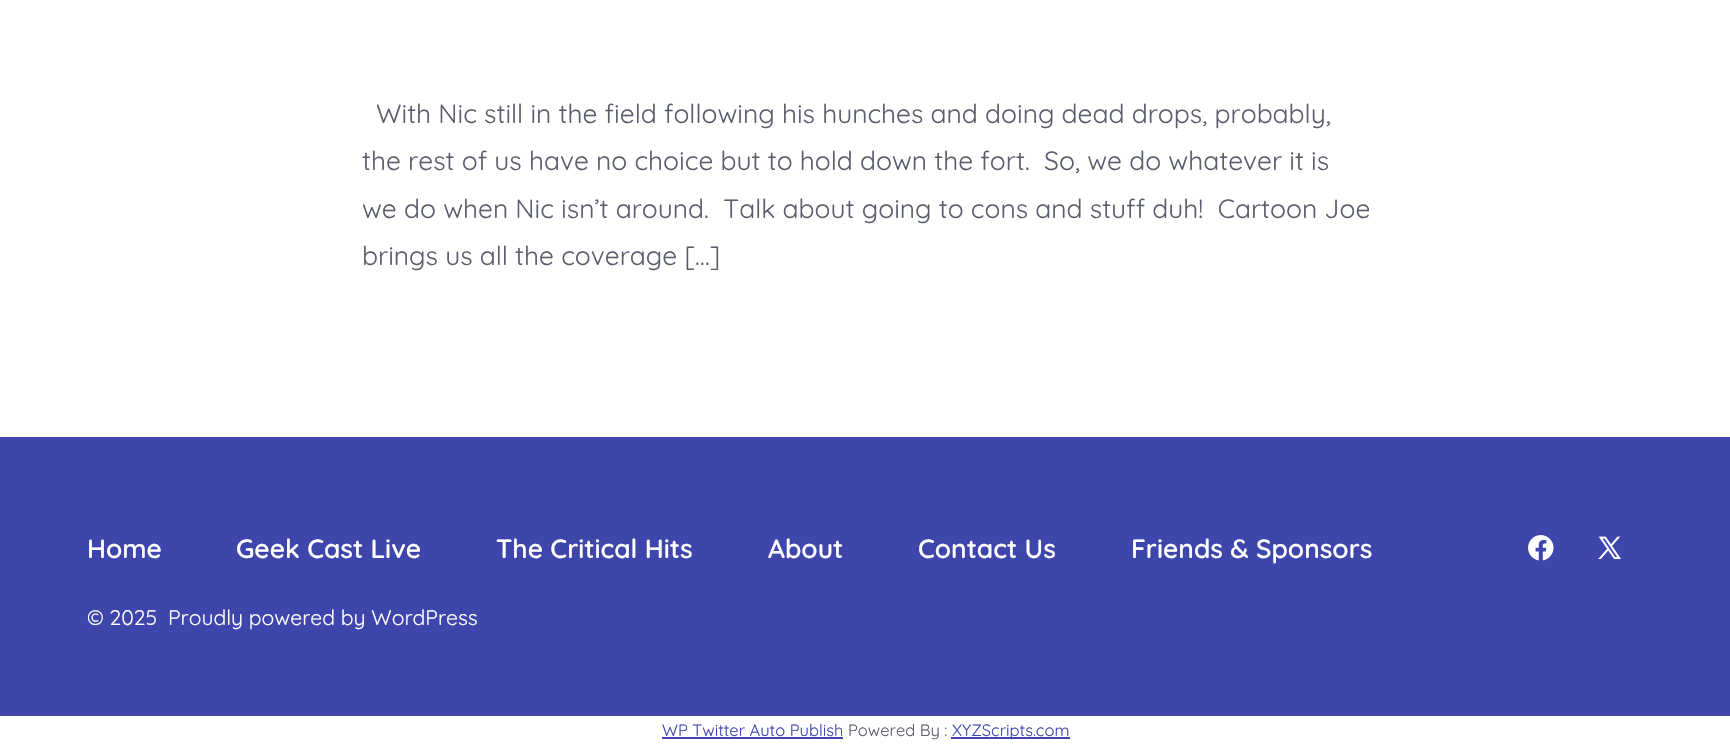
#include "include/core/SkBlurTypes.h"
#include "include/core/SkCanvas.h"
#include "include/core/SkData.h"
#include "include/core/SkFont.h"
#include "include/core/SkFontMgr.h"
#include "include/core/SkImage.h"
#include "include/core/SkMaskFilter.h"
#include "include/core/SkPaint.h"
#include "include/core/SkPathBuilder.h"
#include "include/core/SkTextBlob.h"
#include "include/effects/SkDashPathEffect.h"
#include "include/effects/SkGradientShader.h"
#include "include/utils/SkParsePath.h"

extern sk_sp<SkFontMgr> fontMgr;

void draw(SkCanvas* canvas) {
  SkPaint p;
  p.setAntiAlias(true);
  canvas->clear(SK_ColorWHITE);
  p.setColor(SkColorSetRGB(62, 70, 172));
  canvas->drawRect(SkRect::MakeLTRB(0, 437, 1730, 716), p);
  canvas->drawImageRect(SkImages::DeferredFromEncodedData(SkData::MakeFromFileName("images/1.png")), SkRect::MakeLTRB(1528, 535, 1554, 561), SkSamplingOptions());
  canvas->drawImageRect(SkImages::DeferredFromEncodedData(SkData::MakeFromFileName("images/2.png")), SkRect::MakeLTRB(1598, 536, 1621, 559), SkSamplingOptions());
  canvas->drawRect(SkRect::MakeLTRB(662, 737, 843, 739), p);
  canvas->drawRect(SkRect::MakeLTRB(951, 737, 1070, 739), p);
  SkFont font1(fontMgr->matchFamilyStyle("Quicksand", SkFontStyle::Normal()), 26.4f);
  font1.setSubpixel(true);
  p.setColor(SkColorSetRGB(90, 93, 108));
  canvas->drawString("With Nic still in the field following his hunches and doing dead drops, probably,", 376, 123, font1, p);
  canvas->drawString("the rest of us have no choice but to hold down the fort.  So, we do whatever it is", 362, 170, font1, p);
  canvas->drawString("we do when Nic isn’t around.  Talk about going to cons and stuff duh!  Cartoon Joe", 362, 218, font1, p);
  canvas->drawString("brings us all the coverage […]", 362, 265, font1, p);
  SkFont font2(fontMgr->matchFamilyStyle("Quicksand", SkFontStyle(600, SkFontStyle::kNormal_Width, SkFontStyle::kUpright_Slant)), 26.4f);
  font2.setSubpixel(true);
  p.setColor(SK_ColorWHITE);
  canvas->drawString("Home", 87, 558, font2, p);
  canvas->drawString("Geek Cast Live", 236, 558, font2, p);
  canvas->drawString("The Critical Hits", 496, 558, font2, p);
  canvas->drawString("About", 768, 558, font2, p);
  canvas->drawString("Contact Us", 918, 558, font2, p);
  canvas->drawString("Friends & Sponsors", 1131, 558, font2, p);
  SkFont font3(fontMgr->matchFamilyStyle("Quicksand", SkFontStyle::Normal()), 21.1f);
  font3.setSubpixel(true);
  canvas->drawString("© 2025", 87, 625, font3, p);
  canvas->drawString("Proudly powered by WordPress", 168, 625, font3, p);
  SkFont font4(fontMgr->matchFamilyStyle("Quicksand", SkFontStyle::Normal()), 16.5f);
  font4.setSubpixel(true);
  p.setColor(SkColorSetRGB(62, 70, 172));
  canvas->drawString("WP Twitter Auto Publish", 662, 736, font4, p);
  p.setColor(SkColorSetRGB(90, 93, 108));
  canvas->drawString("Powered By :", 848, 736, font4, p);
  p.setColor(SkColorSetRGB(62, 70, 172));
  canvas->drawString("XYZScripts.com", 952, 736, font4, p);
}
